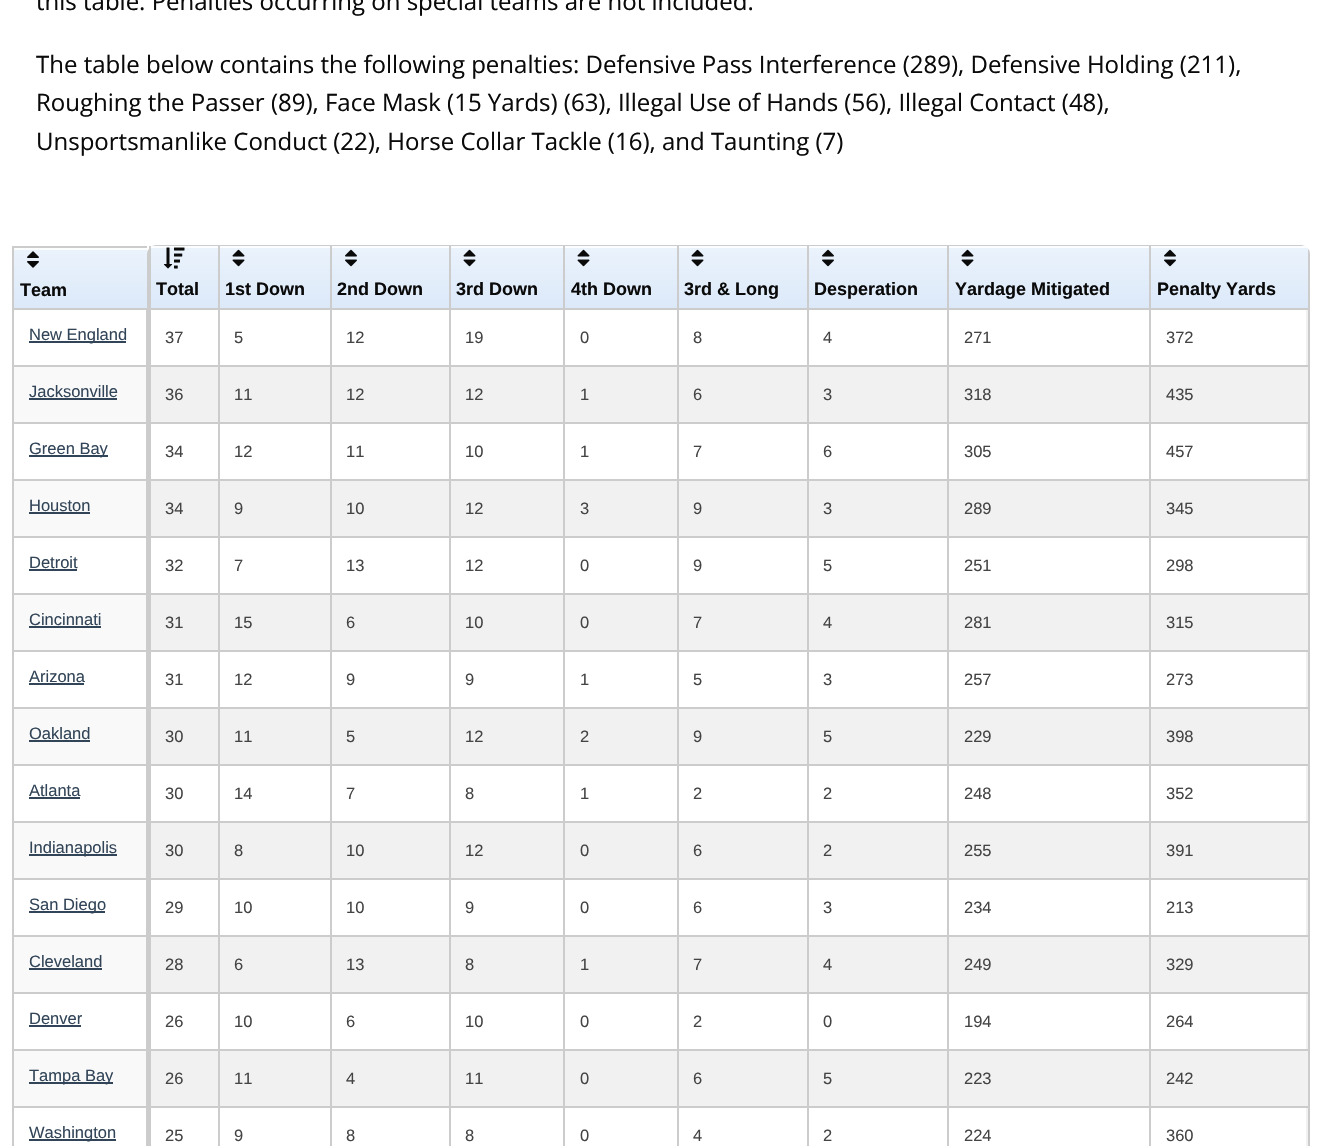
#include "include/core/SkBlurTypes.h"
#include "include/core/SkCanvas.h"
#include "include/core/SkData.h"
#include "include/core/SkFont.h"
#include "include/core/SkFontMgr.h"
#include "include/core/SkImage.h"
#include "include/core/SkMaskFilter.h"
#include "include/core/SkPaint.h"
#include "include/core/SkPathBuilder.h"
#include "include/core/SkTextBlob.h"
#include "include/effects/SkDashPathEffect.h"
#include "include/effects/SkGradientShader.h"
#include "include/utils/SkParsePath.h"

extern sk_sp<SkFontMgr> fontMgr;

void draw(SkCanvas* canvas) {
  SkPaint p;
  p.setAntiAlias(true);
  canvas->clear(SK_ColorWHITE);
  p.setStyle(SkPaint::kStroke_Style);
  p.setStrokeWidth(2);
  p.setColor(SkColorSetRGB(204, 204, 204));
  canvas->drawRoundRect(SkRect::MakeLTRB(148, 246, 1309, 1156), 8, 8, p);
  p.setStyle(SkPaint::kFill_Style);
  {
    const SkColor colors[] = {SkColorSetRGB(235, 243, 252), SkColorSetRGB(220, 233, 249)};
    const float stops[] = {0, 1};
    const SkPoint ends[] = {{80, 248}, {80, 308}};
    p.setShader(SkGradientShader::MakeLinear(ends, colors, stops, 2, SkTileMode::kClamp));
    p.setAlpha(255);
  }
  canvas->drawRect(SkRect::MakeLTRB(14, 250, 147, 308), p);
  p.setShader(nullptr);
  p.setColor(SkColorSetRGB(251, 253, 254));
  canvas->drawRect(SkRect::MakeLTRB(14, 248, 147, 250), p);
  p.setColor(SkColorSetRGB(204, 204, 204));
  canvas->drawRect(SkRect::MakeLTRB(12, 246, 147, 248), p);
  canvas->drawRect(SkRect::MakeLTRB(12, 246, 14, 308), p);
  canvas->drawImageRect(SkImages::DeferredFromEncodedData(SkData::MakeFromFileName("images/1.png")), SkRect::MakeLTRB(27, 251, 39, 268), SkSamplingOptions());
  {
    const SkColor colors[] = {SkColorSetRGB(235, 243, 252), SkColorSetRGB(220, 233, 249)};
    const float stops[] = {0, 1};
    const SkPoint ends[] = {{184, 246}, {184, 308}};
    p.setShader(SkGradientShader::MakeLinear(ends, colors, stops, 2, SkTileMode::kClamp));
    p.setAlpha(255);
  }
  canvas->drawRect(SkRect::MakeLTRB(151, 248, 218, 308), p);
  p.setShader(nullptr);
  p.setColor(SkColorSetRGB(251, 253, 254));
  canvas->drawRect(SkRect::MakeLTRB(150, 246, 218, 248), p);
  p.setColor(SkColorSetRGB(204, 204, 204));
  canvas->drawRect(SkRect::MakeLTRB(149, 246, 151, 308), p);
  canvas->drawImageRect(SkImages::DeferredFromEncodedData(SkData::MakeFromFileName("images/2.png")), SkRect::MakeLTRB(163, 247, 185, 269), SkSamplingOptions());
  {
    const SkColor colors[] = {SkColorSetRGB(235, 243, 252), SkColorSetRGB(220, 233, 249)};
    const float stops[] = {0, 1};
    const SkPoint ends[] = {{275, 246}, {275, 308}};
    p.setShader(SkGradientShader::MakeLinear(ends, colors, stops, 2, SkTileMode::kClamp));
    p.setAlpha(255);
  }
  canvas->drawRect(SkRect::MakeLTRB(220, 248, 330, 308), p);
  p.setShader(nullptr);
  p.setColor(SkColorSetRGB(251, 253, 254));
  canvas->drawRect(SkRect::MakeLTRB(219, 246, 330, 248), p);
  p.setColor(SkColorSetRGB(204, 204, 204));
  canvas->drawRect(SkRect::MakeLTRB(218, 246, 220, 308), p);
  canvas->drawImageRect(SkImages::DeferredFromEncodedData(SkData::MakeFromFileName("images/3.png")), SkRect::MakeLTRB(232, 249, 245, 267), SkSamplingOptions());
  {
    const SkColor colors[] = {SkColorSetRGB(235, 243, 252), SkColorSetRGB(220, 233, 249)};
    const float stops[] = {0, 1};
    const SkPoint ends[] = {{390, 246}, {390, 308}};
    p.setShader(SkGradientShader::MakeLinear(ends, colors, stops, 2, SkTileMode::kClamp));
    p.setAlpha(255);
  }
  canvas->drawRect(SkRect::MakeLTRB(332, 248, 449, 308), p);
  p.setShader(nullptr);
  p.setColor(SkColorSetRGB(251, 253, 254));
  canvas->drawRect(SkRect::MakeLTRB(332, 246, 449, 248), p);
  p.setColor(SkColorSetRGB(204, 204, 204));
  canvas->drawRect(SkRect::MakeLTRB(330, 246, 332, 308), p);
  canvas->drawImageRect(SkImages::DeferredFromEncodedData(SkData::MakeFromFileName("images/4.png")), SkRect::MakeLTRB(345, 249, 357, 267), SkSamplingOptions());
  {
    const SkColor colors[] = {SkColorSetRGB(235, 243, 252), SkColorSetRGB(220, 233, 249)};
    const float stops[] = {0, 1};
    const SkPoint ends[] = {{506, 246}, {506, 308}};
    p.setShader(SkGradientShader::MakeLinear(ends, colors, stops, 2, SkTileMode::kClamp));
    p.setAlpha(255);
  }
  canvas->drawRect(SkRect::MakeLTRB(451, 248, 563, 308), p);
  p.setShader(nullptr);
  p.setColor(SkColorSetRGB(251, 253, 254));
  canvas->drawRect(SkRect::MakeLTRB(450, 246, 563, 248), p);
  p.setColor(SkColorSetRGB(204, 204, 204));
  canvas->drawRect(SkRect::MakeLTRB(449, 246, 451, 308), p);
  canvas->drawImageRect(SkImages::DeferredFromEncodedData(SkData::MakeFromFileName("images/3.png")), SkRect::MakeLTRB(463, 249, 476, 267), SkSamplingOptions());
  {
    const SkColor colors[] = {SkColorSetRGB(235, 243, 252), SkColorSetRGB(220, 233, 249)};
    const float stops[] = {0, 1};
    const SkPoint ends[] = {{620, 246}, {620, 308}};
    p.setShader(SkGradientShader::MakeLinear(ends, colors, stops, 2, SkTileMode::kClamp));
    p.setAlpha(255);
  }
  canvas->drawRect(SkRect::MakeLTRB(565, 248, 677, 308), p);
  p.setShader(nullptr);
  p.setColor(SkColorSetRGB(251, 253, 254));
  canvas->drawRect(SkRect::MakeLTRB(564, 246, 677, 248), p);
  p.setColor(SkColorSetRGB(204, 204, 204));
  canvas->drawRect(SkRect::MakeLTRB(563, 246, 565, 308), p);
  canvas->drawImageRect(SkImages::DeferredFromEncodedData(SkData::MakeFromFileName("images/3.png")), SkRect::MakeLTRB(577, 249, 590, 267), SkSamplingOptions());
  {
    const SkColor colors[] = {SkColorSetRGB(235, 243, 252), SkColorSetRGB(220, 233, 249)};
    const float stops[] = {0, 1};
    const SkPoint ends[] = {{743, 246}, {743, 308}};
    p.setShader(SkGradientShader::MakeLinear(ends, colors, stops, 2, SkTileMode::kClamp));
    p.setAlpha(255);
  }
  canvas->drawRect(SkRect::MakeLTRB(679, 248, 807, 308), p);
  p.setShader(nullptr);
  p.setColor(SkColorSetRGB(251, 253, 254));
  canvas->drawRect(SkRect::MakeLTRB(678, 246, 807, 248), p);
  p.setColor(SkColorSetRGB(204, 204, 204));
  canvas->drawRect(SkRect::MakeLTRB(677, 246, 679, 308), p);
  canvas->drawImageRect(SkImages::DeferredFromEncodedData(SkData::MakeFromFileName("images/3.png")), SkRect::MakeLTRB(691, 249, 704, 267), SkSamplingOptions());
  {
    const SkColor colors[] = {SkColorSetRGB(235, 243, 252), SkColorSetRGB(220, 233, 249)};
    const float stops[] = {0, 1};
    const SkPoint ends[] = {{878, 246}, {878, 308}};
    p.setShader(SkGradientShader::MakeLinear(ends, colors, stops, 2, SkTileMode::kClamp));
    p.setAlpha(255);
  }
  canvas->drawRect(SkRect::MakeLTRB(809, 248, 947, 308), p);
  p.setShader(nullptr);
  p.setColor(SkColorSetRGB(251, 253, 254));
  canvas->drawRect(SkRect::MakeLTRB(809, 246, 947, 248), p);
  p.setColor(SkColorSetRGB(204, 204, 204));
  canvas->drawRect(SkRect::MakeLTRB(807, 246, 809, 308), p);
  canvas->drawImageRect(SkImages::DeferredFromEncodedData(SkData::MakeFromFileName("images/4.png")), SkRect::MakeLTRB(822, 249, 834, 267), SkSamplingOptions());
  {
    const SkColor colors[] = {SkColorSetRGB(235, 243, 252), SkColorSetRGB(220, 233, 249)};
    const float stops[] = {0, 1};
    const SkPoint ends[] = {{1049, 246}, {1049, 308}};
    p.setShader(SkGradientShader::MakeLinear(ends, colors, stops, 2, SkTileMode::kClamp));
    p.setAlpha(255);
  }
  canvas->drawRect(SkRect::MakeLTRB(949, 248, 1149, 308), p);
  p.setShader(nullptr);
  p.setColor(SkColorSetRGB(251, 253, 254));
  canvas->drawRect(SkRect::MakeLTRB(948, 246, 1149, 248), p);
  p.setColor(SkColorSetRGB(204, 204, 204));
  canvas->drawRect(SkRect::MakeLTRB(947, 246, 949, 308), p);
  canvas->drawImageRect(SkImages::DeferredFromEncodedData(SkData::MakeFromFileName("images/3.png")), SkRect::MakeLTRB(961, 249, 974, 267), SkSamplingOptions());
  {
    const SkColor colors[] = {SkColorSetRGB(235, 243, 252), SkColorSetRGB(220, 233, 249)};
    const float stops[] = {0, 1};
    const SkPoint ends[] = {{1229, 246}, {1229, 308}};
    p.setShader(SkGradientShader::MakeLinear(ends, colors, stops, 2, SkTileMode::kClamp));
    p.setAlpha(255);
  }
  canvas->drawRect(SkRect::MakeLTRB(1151, 248, 1308, 308), p);
  p.setShader(nullptr);
  p.setColor(SkColorSetRGB(251, 253, 254));
  canvas->drawRect(SkRect::MakeLTRB(1151, 246, 1308, 248), p);
  p.setColor(SkColorSetRGB(204, 204, 204));
  canvas->drawRect(SkRect::MakeLTRB(1149, 246, 1151, 308), p);
  canvas->drawImageRect(SkImages::DeferredFromEncodedData(SkData::MakeFromFileName("images/4.png")), SkRect::MakeLTRB(1164, 249, 1176, 267), SkSamplingOptions());
  p.setStyle(SkPaint::kStroke_Style);
  p.setColor(SkColorSetRGB(241, 241, 241));
  canvas->drawRect(SkRect::MakeLTRB(150, 309, 1307, 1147), p);
  p.setStyle(SkPaint::kFill_Style);
  p.setColor(SkColorSetRGB(204, 204, 204));
  canvas->drawRect(SkRect::MakeLTRB(12, 308, 147, 310), p);
  canvas->drawRect(SkRect::MakeLTRB(146, 308, 147, 365), p);
  canvas->drawRect(SkRect::MakeLTRB(12, 308, 14, 365), p);
  p.setColor(SkColorSetRGB(50, 69, 88));
  canvas->drawRect(SkRect::MakeLTRB(29, 341, 126, 343), p);
  p.setColor(SkColorSetRGB(204, 204, 204));
  canvas->drawRect(SkRect::MakeLTRB(149, 308, 1308, 310), p);
  canvas->drawRect(SkRect::MakeLTRB(149, 308, 151, 365), p);
  canvas->drawRect(SkRect::MakeLTRB(218, 308, 220, 365), p);
  canvas->drawRect(SkRect::MakeLTRB(330, 308, 332, 365), p);
  canvas->drawRect(SkRect::MakeLTRB(449, 308, 451, 365), p);
  canvas->drawRect(SkRect::MakeLTRB(563, 308, 565, 365), p);
  canvas->drawRect(SkRect::MakeLTRB(677, 308, 679, 365), p);
  canvas->drawRect(SkRect::MakeLTRB(807, 308, 809, 365), p);
  canvas->drawRect(SkRect::MakeLTRB(947, 308, 949, 365), p);
  canvas->drawRect(SkRect::MakeLTRB(1149, 308, 1151, 365), p);
  p.setColor(SkColorSetRGB(241, 241, 241));
  canvas->drawRect(SkRect::MakeLTRB(151, 367, 1306, 422), p);
  p.setColor(SkColorSetRGB(249, 249, 249));
  canvas->drawRect(SkRect::MakeLTRB(14, 367, 146, 422), p);
  p.setColor(SkColorSetRGB(204, 204, 204));
  canvas->drawRect(SkRect::MakeLTRB(12, 365, 147, 367), p);
  canvas->drawRect(SkRect::MakeLTRB(146, 365, 147, 422), p);
  canvas->drawRect(SkRect::MakeLTRB(12, 365, 14, 422), p);
  p.setColor(SkColorSetRGB(50, 69, 88));
  canvas->drawRect(SkRect::MakeLTRB(29, 398, 117, 400), p);
  p.setColor(SkColorSetRGB(204, 204, 204));
  canvas->drawRect(SkRect::MakeLTRB(149, 365, 1308, 367), p);
  canvas->drawRect(SkRect::MakeLTRB(149, 365, 151, 422), p);
  canvas->drawRect(SkRect::MakeLTRB(218, 365, 220, 422), p);
  canvas->drawRect(SkRect::MakeLTRB(330, 365, 332, 422), p);
  canvas->drawRect(SkRect::MakeLTRB(449, 365, 451, 422), p);
  canvas->drawRect(SkRect::MakeLTRB(563, 365, 565, 422), p);
  canvas->drawRect(SkRect::MakeLTRB(677, 365, 679, 422), p);
  canvas->drawRect(SkRect::MakeLTRB(807, 365, 809, 422), p);
  canvas->drawRect(SkRect::MakeLTRB(947, 365, 949, 422), p);
  canvas->drawRect(SkRect::MakeLTRB(1149, 365, 1151, 422), p);
  canvas->drawRect(SkRect::MakeLTRB(12, 422, 147, 424), p);
  canvas->drawRect(SkRect::MakeLTRB(146, 422, 147, 479), p);
  canvas->drawRect(SkRect::MakeLTRB(12, 422, 14, 479), p);
  p.setColor(SkColorSetRGB(50, 69, 88));
  canvas->drawRect(SkRect::MakeLTRB(29, 455, 108, 457), p);
  p.setColor(SkColorSetRGB(204, 204, 204));
  canvas->drawRect(SkRect::MakeLTRB(149, 422, 1308, 424), p);
  canvas->drawRect(SkRect::MakeLTRB(149, 422, 151, 479), p);
  canvas->drawRect(SkRect::MakeLTRB(218, 422, 220, 479), p);
  canvas->drawRect(SkRect::MakeLTRB(330, 422, 332, 479), p);
  canvas->drawRect(SkRect::MakeLTRB(449, 422, 451, 479), p);
  canvas->drawRect(SkRect::MakeLTRB(563, 422, 565, 479), p);
  canvas->drawRect(SkRect::MakeLTRB(677, 422, 679, 479), p);
  canvas->drawRect(SkRect::MakeLTRB(807, 422, 809, 479), p);
  canvas->drawRect(SkRect::MakeLTRB(947, 422, 949, 479), p);
  canvas->drawRect(SkRect::MakeLTRB(1149, 422, 1151, 479), p);
  p.setColor(SkColorSetRGB(241, 241, 241));
  canvas->drawRect(SkRect::MakeLTRB(151, 481, 1306, 536), p);
  p.setColor(SkColorSetRGB(249, 249, 249));
  canvas->drawRect(SkRect::MakeLTRB(14, 481, 146, 536), p);
  p.setColor(SkColorSetRGB(204, 204, 204));
  canvas->drawRect(SkRect::MakeLTRB(12, 479, 147, 481), p);
  canvas->drawRect(SkRect::MakeLTRB(146, 479, 147, 536), p);
  canvas->drawRect(SkRect::MakeLTRB(12, 479, 14, 536), p);
  p.setColor(SkColorSetRGB(50, 69, 88));
  canvas->drawRect(SkRect::MakeLTRB(29, 512, 90, 514), p);
  p.setColor(SkColorSetRGB(204, 204, 204));
  canvas->drawRect(SkRect::MakeLTRB(149, 479, 1308, 481), p);
  canvas->drawRect(SkRect::MakeLTRB(149, 479, 151, 536), p);
  canvas->drawRect(SkRect::MakeLTRB(218, 479, 220, 536), p);
  canvas->drawRect(SkRect::MakeLTRB(330, 479, 332, 536), p);
  canvas->drawRect(SkRect::MakeLTRB(449, 479, 451, 536), p);
  canvas->drawRect(SkRect::MakeLTRB(563, 479, 565, 536), p);
  canvas->drawRect(SkRect::MakeLTRB(677, 479, 679, 536), p);
  canvas->drawRect(SkRect::MakeLTRB(807, 479, 809, 536), p);
  canvas->drawRect(SkRect::MakeLTRB(947, 479, 949, 536), p);
  canvas->drawRect(SkRect::MakeLTRB(1149, 479, 1151, 536), p);
  canvas->drawRect(SkRect::MakeLTRB(12, 536, 147, 538), p);
  canvas->drawRect(SkRect::MakeLTRB(146, 536, 147, 593), p);
  canvas->drawRect(SkRect::MakeLTRB(12, 536, 14, 593), p);
  p.setColor(SkColorSetRGB(50, 69, 88));
  canvas->drawRect(SkRect::MakeLTRB(29, 569, 77, 571), p);
  p.setColor(SkColorSetRGB(204, 204, 204));
  canvas->drawRect(SkRect::MakeLTRB(149, 536, 1308, 538), p);
  canvas->drawRect(SkRect::MakeLTRB(149, 536, 151, 593), p);
  canvas->drawRect(SkRect::MakeLTRB(218, 536, 220, 593), p);
  canvas->drawRect(SkRect::MakeLTRB(330, 536, 332, 593), p);
  canvas->drawRect(SkRect::MakeLTRB(449, 536, 451, 593), p);
  canvas->drawRect(SkRect::MakeLTRB(563, 536, 565, 593), p);
  canvas->drawRect(SkRect::MakeLTRB(677, 536, 679, 593), p);
  canvas->drawRect(SkRect::MakeLTRB(807, 536, 809, 593), p);
  canvas->drawRect(SkRect::MakeLTRB(947, 536, 949, 593), p);
  canvas->drawRect(SkRect::MakeLTRB(1149, 536, 1151, 593), p);
  p.setColor(SkColorSetRGB(241, 241, 241));
  canvas->drawRect(SkRect::MakeLTRB(151, 595, 1306, 650), p);
  p.setColor(SkColorSetRGB(249, 249, 249));
  canvas->drawRect(SkRect::MakeLTRB(14, 595, 146, 650), p);
  p.setColor(SkColorSetRGB(204, 204, 204));
  canvas->drawRect(SkRect::MakeLTRB(12, 593, 147, 595), p);
  canvas->drawRect(SkRect::MakeLTRB(146, 593, 147, 650), p);
  canvas->drawRect(SkRect::MakeLTRB(12, 593, 14, 650), p);
  p.setColor(SkColorSetRGB(50, 69, 88));
  canvas->drawRect(SkRect::MakeLTRB(29, 626, 101, 628), p);
  p.setColor(SkColorSetRGB(204, 204, 204));
  canvas->drawRect(SkRect::MakeLTRB(149, 593, 1308, 595), p);
  canvas->drawRect(SkRect::MakeLTRB(149, 593, 151, 650), p);
  canvas->drawRect(SkRect::MakeLTRB(218, 593, 220, 650), p);
  canvas->drawRect(SkRect::MakeLTRB(330, 593, 332, 650), p);
  canvas->drawRect(SkRect::MakeLTRB(449, 593, 451, 650), p);
  canvas->drawRect(SkRect::MakeLTRB(563, 593, 565, 650), p);
  canvas->drawRect(SkRect::MakeLTRB(677, 593, 679, 650), p);
  canvas->drawRect(SkRect::MakeLTRB(807, 593, 809, 650), p);
  canvas->drawRect(SkRect::MakeLTRB(947, 593, 949, 650), p);
  canvas->drawRect(SkRect::MakeLTRB(1149, 593, 1151, 650), p);
  canvas->drawRect(SkRect::MakeLTRB(12, 650, 147, 652), p);
  canvas->drawRect(SkRect::MakeLTRB(146, 650, 147, 707), p);
  canvas->drawRect(SkRect::MakeLTRB(12, 650, 14, 707), p);
  p.setColor(SkColorSetRGB(50, 69, 88));
  canvas->drawRect(SkRect::MakeLTRB(29, 683, 84, 685), p);
  p.setColor(SkColorSetRGB(204, 204, 204));
  canvas->drawRect(SkRect::MakeLTRB(149, 650, 1308, 652), p);
  canvas->drawRect(SkRect::MakeLTRB(149, 650, 151, 707), p);
  canvas->drawRect(SkRect::MakeLTRB(218, 650, 220, 707), p);
  canvas->drawRect(SkRect::MakeLTRB(330, 650, 332, 707), p);
  canvas->drawRect(SkRect::MakeLTRB(449, 650, 451, 707), p);
  canvas->drawRect(SkRect::MakeLTRB(563, 650, 565, 707), p);
  canvas->drawRect(SkRect::MakeLTRB(677, 650, 679, 707), p);
  canvas->drawRect(SkRect::MakeLTRB(807, 650, 809, 707), p);
  canvas->drawRect(SkRect::MakeLTRB(947, 650, 949, 707), p);
  canvas->drawRect(SkRect::MakeLTRB(1149, 650, 1151, 707), p);
  p.setColor(SkColorSetRGB(241, 241, 241));
  canvas->drawRect(SkRect::MakeLTRB(151, 709, 1306, 764), p);
  p.setColor(SkColorSetRGB(249, 249, 249));
  canvas->drawRect(SkRect::MakeLTRB(14, 709, 146, 764), p);
  p.setColor(SkColorSetRGB(204, 204, 204));
  canvas->drawRect(SkRect::MakeLTRB(12, 707, 147, 709), p);
  canvas->drawRect(SkRect::MakeLTRB(146, 707, 147, 764), p);
  canvas->drawRect(SkRect::MakeLTRB(12, 707, 14, 764), p);
  p.setColor(SkColorSetRGB(50, 69, 88));
  canvas->drawRect(SkRect::MakeLTRB(29, 740, 90, 742), p);
  p.setColor(SkColorSetRGB(204, 204, 204));
  canvas->drawRect(SkRect::MakeLTRB(149, 707, 1308, 709), p);
  canvas->drawRect(SkRect::MakeLTRB(149, 707, 151, 764), p);
  canvas->drawRect(SkRect::MakeLTRB(218, 707, 220, 764), p);
  canvas->drawRect(SkRect::MakeLTRB(330, 707, 332, 764), p);
  canvas->drawRect(SkRect::MakeLTRB(449, 707, 451, 764), p);
  canvas->drawRect(SkRect::MakeLTRB(563, 707, 565, 764), p);
  canvas->drawRect(SkRect::MakeLTRB(677, 707, 679, 764), p);
  canvas->drawRect(SkRect::MakeLTRB(807, 707, 809, 764), p);
  canvas->drawRect(SkRect::MakeLTRB(947, 707, 949, 764), p);
  canvas->drawRect(SkRect::MakeLTRB(1149, 707, 1151, 764), p);
  canvas->drawRect(SkRect::MakeLTRB(12, 764, 147, 766), p);
  canvas->drawRect(SkRect::MakeLTRB(146, 764, 147, 821), p);
  canvas->drawRect(SkRect::MakeLTRB(12, 764, 14, 821), p);
  p.setColor(SkColorSetRGB(50, 69, 88));
  canvas->drawRect(SkRect::MakeLTRB(29, 797, 80, 799), p);
  p.setColor(SkColorSetRGB(204, 204, 204));
  canvas->drawRect(SkRect::MakeLTRB(149, 764, 1308, 766), p);
  canvas->drawRect(SkRect::MakeLTRB(149, 764, 151, 821), p);
  canvas->drawRect(SkRect::MakeLTRB(218, 764, 220, 821), p);
  canvas->drawRect(SkRect::MakeLTRB(330, 764, 332, 821), p);
  canvas->drawRect(SkRect::MakeLTRB(449, 764, 451, 821), p);
  canvas->drawRect(SkRect::MakeLTRB(563, 764, 565, 821), p);
  canvas->drawRect(SkRect::MakeLTRB(677, 764, 679, 821), p);
  canvas->drawRect(SkRect::MakeLTRB(807, 764, 809, 821), p);
  canvas->drawRect(SkRect::MakeLTRB(947, 764, 949, 821), p);
  canvas->drawRect(SkRect::MakeLTRB(1149, 764, 1151, 821), p);
  p.setColor(SkColorSetRGB(241, 241, 241));
  canvas->drawRect(SkRect::MakeLTRB(151, 823, 1306, 878), p);
  p.setColor(SkColorSetRGB(249, 249, 249));
  canvas->drawRect(SkRect::MakeLTRB(14, 823, 146, 878), p);
  p.setColor(SkColorSetRGB(204, 204, 204));
  canvas->drawRect(SkRect::MakeLTRB(12, 821, 147, 823), p);
  canvas->drawRect(SkRect::MakeLTRB(146, 821, 147, 878), p);
  canvas->drawRect(SkRect::MakeLTRB(12, 821, 14, 878), p);
  p.setColor(SkColorSetRGB(50, 69, 88));
  canvas->drawRect(SkRect::MakeLTRB(29, 854, 117, 856), p);
  p.setColor(SkColorSetRGB(204, 204, 204));
  canvas->drawRect(SkRect::MakeLTRB(149, 821, 1308, 823), p);
  canvas->drawRect(SkRect::MakeLTRB(149, 821, 151, 878), p);
  canvas->drawRect(SkRect::MakeLTRB(218, 821, 220, 878), p);
  canvas->drawRect(SkRect::MakeLTRB(330, 821, 332, 878), p);
  canvas->drawRect(SkRect::MakeLTRB(449, 821, 451, 878), p);
  canvas->drawRect(SkRect::MakeLTRB(563, 821, 565, 878), p);
  canvas->drawRect(SkRect::MakeLTRB(677, 821, 679, 878), p);
  canvas->drawRect(SkRect::MakeLTRB(807, 821, 809, 878), p);
  canvas->drawRect(SkRect::MakeLTRB(947, 821, 949, 878), p);
  canvas->drawRect(SkRect::MakeLTRB(1149, 821, 1151, 878), p);
  canvas->drawRect(SkRect::MakeLTRB(12, 878, 147, 880), p);
  canvas->drawRect(SkRect::MakeLTRB(146, 878, 147, 935), p);
  canvas->drawRect(SkRect::MakeLTRB(12, 878, 14, 935), p);
  p.setColor(SkColorSetRGB(50, 69, 88));
  canvas->drawRect(SkRect::MakeLTRB(29, 911, 105, 913), p);
  p.setColor(SkColorSetRGB(204, 204, 204));
  canvas->drawRect(SkRect::MakeLTRB(149, 878, 1308, 880), p);
  canvas->drawRect(SkRect::MakeLTRB(149, 878, 151, 935), p);
  canvas->drawRect(SkRect::MakeLTRB(218, 878, 220, 935), p);
  canvas->drawRect(SkRect::MakeLTRB(330, 878, 332, 935), p);
  canvas->drawRect(SkRect::MakeLTRB(449, 878, 451, 935), p);
  canvas->drawRect(SkRect::MakeLTRB(563, 878, 565, 935), p);
  canvas->drawRect(SkRect::MakeLTRB(677, 878, 679, 935), p);
  canvas->drawRect(SkRect::MakeLTRB(807, 878, 809, 935), p);
  canvas->drawRect(SkRect::MakeLTRB(947, 878, 949, 935), p);
  canvas->drawRect(SkRect::MakeLTRB(1149, 878, 1151, 935), p);
  p.setColor(SkColorSetRGB(241, 241, 241));
  canvas->drawRect(SkRect::MakeLTRB(151, 937, 1306, 992), p);
  p.setColor(SkColorSetRGB(249, 249, 249));
  canvas->drawRect(SkRect::MakeLTRB(14, 937, 146, 992), p);
  p.setColor(SkColorSetRGB(204, 204, 204));
  canvas->drawRect(SkRect::MakeLTRB(12, 935, 147, 937), p);
  canvas->drawRect(SkRect::MakeLTRB(146, 935, 147, 992), p);
  canvas->drawRect(SkRect::MakeLTRB(12, 935, 14, 992), p);
  p.setColor(SkColorSetRGB(50, 69, 88));
  canvas->drawRect(SkRect::MakeLTRB(29, 968, 102, 970), p);
  p.setColor(SkColorSetRGB(204, 204, 204));
  canvas->drawRect(SkRect::MakeLTRB(149, 935, 1308, 937), p);
  canvas->drawRect(SkRect::MakeLTRB(149, 935, 151, 992), p);
  canvas->drawRect(SkRect::MakeLTRB(218, 935, 220, 992), p);
  canvas->drawRect(SkRect::MakeLTRB(330, 935, 332, 992), p);
  canvas->drawRect(SkRect::MakeLTRB(449, 935, 451, 992), p);
  canvas->drawRect(SkRect::MakeLTRB(563, 935, 565, 992), p);
  canvas->drawRect(SkRect::MakeLTRB(677, 935, 679, 992), p);
  canvas->drawRect(SkRect::MakeLTRB(807, 935, 809, 992), p);
  canvas->drawRect(SkRect::MakeLTRB(947, 935, 949, 992), p);
  canvas->drawRect(SkRect::MakeLTRB(1149, 935, 1151, 992), p);
  canvas->drawRect(SkRect::MakeLTRB(12, 992, 147, 994), p);
  canvas->drawRect(SkRect::MakeLTRB(146, 992, 147, 1049), p);
  canvas->drawRect(SkRect::MakeLTRB(12, 992, 14, 1049), p);
  p.setColor(SkColorSetRGB(50, 69, 88));
  canvas->drawRect(SkRect::MakeLTRB(29, 1025, 81, 1027), p);
  p.setColor(SkColorSetRGB(204, 204, 204));
  canvas->drawRect(SkRect::MakeLTRB(149, 992, 1308, 994), p);
  canvas->drawRect(SkRect::MakeLTRB(149, 992, 151, 1049), p);
  canvas->drawRect(SkRect::MakeLTRB(218, 992, 220, 1049), p);
  canvas->drawRect(SkRect::MakeLTRB(330, 992, 332, 1049), p);
  canvas->drawRect(SkRect::MakeLTRB(449, 992, 451, 1049), p);
  canvas->drawRect(SkRect::MakeLTRB(563, 992, 565, 1049), p);
  canvas->drawRect(SkRect::MakeLTRB(677, 992, 679, 1049), p);
  canvas->drawRect(SkRect::MakeLTRB(807, 992, 809, 1049), p);
  canvas->drawRect(SkRect::MakeLTRB(947, 992, 949, 1049), p);
  canvas->drawRect(SkRect::MakeLTRB(1149, 992, 1151, 1049), p);
  p.setColor(SkColorSetRGB(241, 241, 241));
  canvas->drawRect(SkRect::MakeLTRB(151, 1051, 1306, 1106), p);
  p.setColor(SkColorSetRGB(249, 249, 249));
  canvas->drawRect(SkRect::MakeLTRB(14, 1051, 146, 1106), p);
  p.setColor(SkColorSetRGB(204, 204, 204));
  canvas->drawRect(SkRect::MakeLTRB(12, 1049, 147, 1051), p);
  canvas->drawRect(SkRect::MakeLTRB(146, 1049, 147, 1106), p);
  canvas->drawRect(SkRect::MakeLTRB(12, 1049, 14, 1106), p);
  p.setColor(SkColorSetRGB(50, 69, 88));
  canvas->drawRect(SkRect::MakeLTRB(29, 1082, 113, 1084), p);
  p.setColor(SkColorSetRGB(204, 204, 204));
  canvas->drawRect(SkRect::MakeLTRB(149, 1049, 1308, 1051), p);
  canvas->drawRect(SkRect::MakeLTRB(149, 1049, 151, 1106), p);
  canvas->drawRect(SkRect::MakeLTRB(218, 1049, 220, 1106), p);
  canvas->drawRect(SkRect::MakeLTRB(330, 1049, 332, 1106), p);
  canvas->drawRect(SkRect::MakeLTRB(449, 1049, 451, 1106), p);
  canvas->drawRect(SkRect::MakeLTRB(563, 1049, 565, 1106), p);
  canvas->drawRect(SkRect::MakeLTRB(677, 1049, 679, 1106), p);
  canvas->drawRect(SkRect::MakeLTRB(807, 1049, 809, 1106), p);
  canvas->drawRect(SkRect::MakeLTRB(947, 1049, 949, 1106), p);
  canvas->drawRect(SkRect::MakeLTRB(1149, 1049, 1151, 1106), p);
  canvas->drawRect(SkRect::MakeLTRB(12, 1106, 147, 1108), p);
  canvas->drawRect(SkRect::MakeLTRB(146, 1106, 147, 1146), p);
  canvas->drawRect(SkRect::MakeLTRB(12, 1106, 14, 1146), p);
  p.setColor(SkColorSetRGB(50, 69, 88));
  canvas->drawRect(SkRect::MakeLTRB(29, 1139, 116, 1141), p);
  p.setColor(SkColorSetRGB(204, 204, 204));
  canvas->drawRect(SkRect::MakeLTRB(149, 1106, 1308, 1108), p);
  canvas->drawRect(SkRect::MakeLTRB(149, 1106, 151, 1146), p);
  canvas->drawRect(SkRect::MakeLTRB(218, 1106, 220, 1146), p);
  canvas->drawRect(SkRect::MakeLTRB(330, 1106, 332, 1146), p);
  canvas->drawRect(SkRect::MakeLTRB(449, 1106, 451, 1146), p);
  canvas->drawRect(SkRect::MakeLTRB(563, 1106, 565, 1146), p);
  canvas->drawRect(SkRect::MakeLTRB(677, 1106, 679, 1146), p);
  canvas->drawRect(SkRect::MakeLTRB(807, 1106, 809, 1146), p);
  canvas->drawRect(SkRect::MakeLTRB(947, 1106, 949, 1146), p);
  canvas->drawRect(SkRect::MakeLTRB(1149, 1106, 1151, 1146), p);
  SkFont font1(fontMgr->matchFamilyStyle("Open Sans", SkFontStyle::Normal()), 24);
  font1.setSubpixel(true);
  p.setColor(SkColorSetRGB(10, 10, 10));
  canvas->drawString("this table. Penalties occurring on special teams are not included.", 36, 10, font1, p);
  canvas->drawString("The table below contains the following penalties: Defensive Pass Interference (289), Defensive Holding (211),", 36, 73, font1, p);
  canvas->drawString("Roughing the Passer (89), Face Mask (15 Yards) (63), Illegal Use of Hands (56), Illegal Contact (48),", 36, 111, font1, p);
  canvas->drawString("Unsportsmanlike Conduct (22), Horse Collar Tackle (16), and Taunting (7)", 36, 150, font1, p);
  SkFont font2(fontMgr->matchFamilyStyle("Liberation Sans", SkFontStyle::Bold()), 18);
  font2.setSubpixel(true);
  canvas->drawString("Team", 20, 296, font2, p);
  canvas->drawString("Total", 156, 295, font2, p);
  canvas->drawString("1st Down", 225, 295, font2, p);
  canvas->drawString("2nd Down", 337, 295, font2, p);
  canvas->drawString("3rd Down", 456, 295, font2, p);
  canvas->drawString("4th Down", 571, 295, font2, p);
  canvas->drawString("3rd & Long", 684, 295, font2, p);
  canvas->drawString("Desperation", 814, 295, font2, p);
  canvas->drawString("Yardage Mitigated", 955, 295, font2, p);
  canvas->drawString("Penalty Yards", 1157, 295, font2, p);
  SkFont font3(fontMgr->matchFamilyStyle("Liberation Sans", SkFontStyle::Normal()), 16.5f);
  font3.setSubpixel(true);
  p.setColor(SkColorSetRGB(50, 69, 88));
  canvas->drawString("New England", 29, 340, font3, p);
  p.setColor(SkColorSetRGB(68, 68, 68));
  canvas->drawString("37", 165, 343, font3, p);
  canvas->drawString("5", 234, 343, font3, p);
  canvas->drawString("12", 346, 343, font3, p);
  canvas->drawString("19", 465, 343, font3, p);
  canvas->drawString("0", 580, 343, font3, p);
  canvas->drawString("8", 693, 343, font3, p);
  canvas->drawString("4", 823, 343, font3, p);
  canvas->drawString("271", 964, 343, font3, p);
  canvas->drawString("372", 1166, 343, font3, p);
  p.setColor(SkColorSetRGB(50, 69, 88));
  canvas->drawString("Jacksonville", 29, 397, font3, p);
  p.setColor(SkColorSetRGB(68, 68, 68));
  canvas->drawString("36", 165, 400, font3, p);
  canvas->drawString("11", 234, 400, font3, p);
  canvas->drawString("12", 346, 400, font3, p);
  canvas->drawString("12", 465, 400, font3, p);
  canvas->drawString("1", 580, 400, font3, p);
  canvas->drawString("6", 693, 400, font3, p);
  canvas->drawString("3", 823, 400, font3, p);
  canvas->drawString("318", 964, 400, font3, p);
  canvas->drawString("435", 1166, 400, font3, p);
  p.setColor(SkColorSetRGB(50, 69, 88));
  canvas->drawString("Green Bay", 29, 454, font3, p);
  p.setColor(SkColorSetRGB(68, 68, 68));
  canvas->drawString("34", 165, 457, font3, p);
  canvas->drawString("12", 234, 457, font3, p);
  canvas->drawString("11", 346, 457, font3, p);
  canvas->drawString("10", 465, 457, font3, p);
  canvas->drawString("1", 580, 457, font3, p);
  canvas->drawString("7", 693, 457, font3, p);
  canvas->drawString("6", 823, 457, font3, p);
  canvas->drawString("305", 964, 457, font3, p);
  canvas->drawString("457", 1166, 457, font3, p);
  p.setColor(SkColorSetRGB(50, 69, 88));
  canvas->drawString("Houston", 29, 511, font3, p);
  p.setColor(SkColorSetRGB(68, 68, 68));
  canvas->drawString("34", 165, 514, font3, p);
  canvas->drawString("9", 234, 514, font3, p);
  canvas->drawString("10", 346, 514, font3, p);
  canvas->drawString("12", 465, 514, font3, p);
  canvas->drawString("3", 580, 514, font3, p);
  canvas->drawString("9", 693, 514, font3, p);
  canvas->drawString("3", 823, 514, font3, p);
  canvas->drawString("289", 964, 514, font3, p);
  canvas->drawString("345", 1166, 514, font3, p);
  p.setColor(SkColorSetRGB(50, 69, 88));
  canvas->drawString("Detroit", 29, 568, font3, p);
  p.setColor(SkColorSetRGB(68, 68, 68));
  canvas->drawString("32", 165, 571, font3, p);
  canvas->drawString("7", 234, 571, font3, p);
  canvas->drawString("13", 346, 571, font3, p);
  canvas->drawString("12", 465, 571, font3, p);
  canvas->drawString("0", 580, 571, font3, p);
  canvas->drawString("9", 693, 571, font3, p);
  canvas->drawString("5", 823, 571, font3, p);
  canvas->drawString("251", 964, 571, font3, p);
  canvas->drawString("298", 1166, 571, font3, p);
  p.setColor(SkColorSetRGB(50, 69, 88));
  canvas->drawString("Cincinnati", 29, 625, font3, p);
  p.setColor(SkColorSetRGB(68, 68, 68));
  canvas->drawString("31", 165, 628, font3, p);
  canvas->drawString("15", 234, 628, font3, p);
  canvas->drawString("6", 346, 628, font3, p);
  canvas->drawString("10", 465, 628, font3, p);
  canvas->drawString("0", 580, 628, font3, p);
  canvas->drawString("7", 693, 628, font3, p);
  canvas->drawString("4", 823, 628, font3, p);
  canvas->drawString("281", 964, 628, font3, p);
  canvas->drawString("315", 1166, 628, font3, p);
  p.setColor(SkColorSetRGB(50, 69, 88));
  canvas->drawString("Arizona", 29, 682, font3, p);
  p.setColor(SkColorSetRGB(68, 68, 68));
  canvas->drawString("31", 165, 685, font3, p);
  canvas->drawString("12", 234, 685, font3, p);
  canvas->drawString("9", 346, 685, font3, p);
  canvas->drawString("9", 465, 685, font3, p);
  canvas->drawString("1", 580, 685, font3, p);
  canvas->drawString("5", 693, 685, font3, p);
  canvas->drawString("3", 823, 685, font3, p);
  canvas->drawString("257", 964, 685, font3, p);
  canvas->drawString("273", 1166, 685, font3, p);
  p.setColor(SkColorSetRGB(50, 69, 88));
  canvas->drawString("Oakland", 29, 739, font3, p);
  p.setColor(SkColorSetRGB(68, 68, 68));
  canvas->drawString("30", 165, 742, font3, p);
  canvas->drawString("11", 234, 742, font3, p);
  canvas->drawString("5", 346, 742, font3, p);
  canvas->drawString("12", 465, 742, font3, p);
  canvas->drawString("2", 580, 742, font3, p);
  canvas->drawString("9", 693, 742, font3, p);
  canvas->drawString("5", 823, 742, font3, p);
  canvas->drawString("229", 964, 742, font3, p);
  canvas->drawString("398", 1166, 742, font3, p);
  p.setColor(SkColorSetRGB(50, 69, 88));
  canvas->drawString("Atlanta", 29, 796, font3, p);
  p.setColor(SkColorSetRGB(68, 68, 68));
  canvas->drawString("30", 165, 799, font3, p);
  canvas->drawString("14", 234, 799, font3, p);
  canvas->drawString("7", 346, 799, font3, p);
  canvas->drawString("8", 465, 799, font3, p);
  canvas->drawString("1", 580, 799, font3, p);
  canvas->drawString("2", 693, 799, font3, p);
  canvas->drawString("2", 823, 799, font3, p);
  canvas->drawString("248", 964, 799, font3, p);
  canvas->drawString("352", 1166, 799, font3, p);
  p.setColor(SkColorSetRGB(50, 69, 88));
  canvas->drawString("Indianapolis", 29, 853, font3, p);
  p.setColor(SkColorSetRGB(68, 68, 68));
  canvas->drawString("30", 165, 856, font3, p);
  canvas->drawString("8", 234, 856, font3, p);
  canvas->drawString("10", 346, 856, font3, p);
  canvas->drawString("12", 465, 856, font3, p);
  canvas->drawString("0", 580, 856, font3, p);
  canvas->drawString("6", 693, 856, font3, p);
  canvas->drawString("2", 823, 856, font3, p);
  canvas->drawString("255", 964, 856, font3, p);
  canvas->drawString("391", 1166, 856, font3, p);
  p.setColor(SkColorSetRGB(50, 69, 88));
  canvas->drawString("San Diego", 29, 910, font3, p);
  p.setColor(SkColorSetRGB(68, 68, 68));
  canvas->drawString("29", 165, 913, font3, p);
  canvas->drawString("10", 234, 913, font3, p);
  canvas->drawString("10", 346, 913, font3, p);
  canvas->drawString("9", 465, 913, font3, p);
  canvas->drawString("0", 580, 913, font3, p);
  canvas->drawString("6", 693, 913, font3, p);
  canvas->drawString("3", 823, 913, font3, p);
  canvas->drawString("234", 964, 913, font3, p);
  canvas->drawString("213", 1166, 913, font3, p);
  p.setColor(SkColorSetRGB(50, 69, 88));
  canvas->drawString("Cleveland", 29, 967, font3, p);
  p.setColor(SkColorSetRGB(68, 68, 68));
  canvas->drawString("28", 165, 970, font3, p);
  canvas->drawString("6", 234, 970, font3, p);
  canvas->drawString("13", 346, 970, font3, p);
  canvas->drawString("8", 465, 970, font3, p);
  canvas->drawString("1", 580, 970, font3, p);
  canvas->drawString("7", 693, 970, font3, p);
  canvas->drawString("4", 823, 970, font3, p);
  canvas->drawString("249", 964, 970, font3, p);
  canvas->drawString("329", 1166, 970, font3, p);
  p.setColor(SkColorSetRGB(50, 69, 88));
  canvas->drawString("Denver", 29, 1024, font3, p);
  p.setColor(SkColorSetRGB(68, 68, 68));
  canvas->drawString("26", 165, 1027, font3, p);
  canvas->drawString("10", 234, 1027, font3, p);
  canvas->drawString("6", 346, 1027, font3, p);
  canvas->drawString("10", 465, 1027, font3, p);
  canvas->drawString("0", 580, 1027, font3, p);
  canvas->drawString("2", 693, 1027, font3, p);
  canvas->drawString("0", 823, 1027, font3, p);
  canvas->drawString("194", 964, 1027, font3, p);
  canvas->drawString("264", 1166, 1027, font3, p);
  p.setColor(SkColorSetRGB(50, 69, 88));
  canvas->drawString("Tampa Bay", 29, 1081, font3, p);
  p.setColor(SkColorSetRGB(68, 68, 68));
  canvas->drawString("26", 165, 1084, font3, p);
  canvas->drawString("11", 234, 1084, font3, p);
  canvas->drawString("4", 346, 1084, font3, p);
  canvas->drawString("11", 465, 1084, font3, p);
  canvas->drawString("0", 580, 1084, font3, p);
  canvas->drawString("6", 693, 1084, font3, p);
  canvas->drawString("5", 823, 1084, font3, p);
  canvas->drawString("223", 964, 1084, font3, p);
  canvas->drawString("242", 1166, 1084, font3, p);
  p.setColor(SkColorSetRGB(50, 69, 88));
  canvas->drawString("Washington", 29, 1138, font3, p);
  p.setColor(SkColorSetRGB(68, 68, 68));
  canvas->drawString("25", 165, 1141, font3, p);
  canvas->drawString("9", 234, 1141, font3, p);
  canvas->drawString("8", 346, 1141, font3, p);
  canvas->drawString("8", 465, 1141, font3, p);
  canvas->drawString("0", 580, 1141, font3, p);
  canvas->drawString("4", 693, 1141, font3, p);
  canvas->drawString("2", 823, 1141, font3, p);
  canvas->drawString("224", 964, 1141, font3, p);
  canvas->drawString("360", 1166, 1141, font3, p);
}
